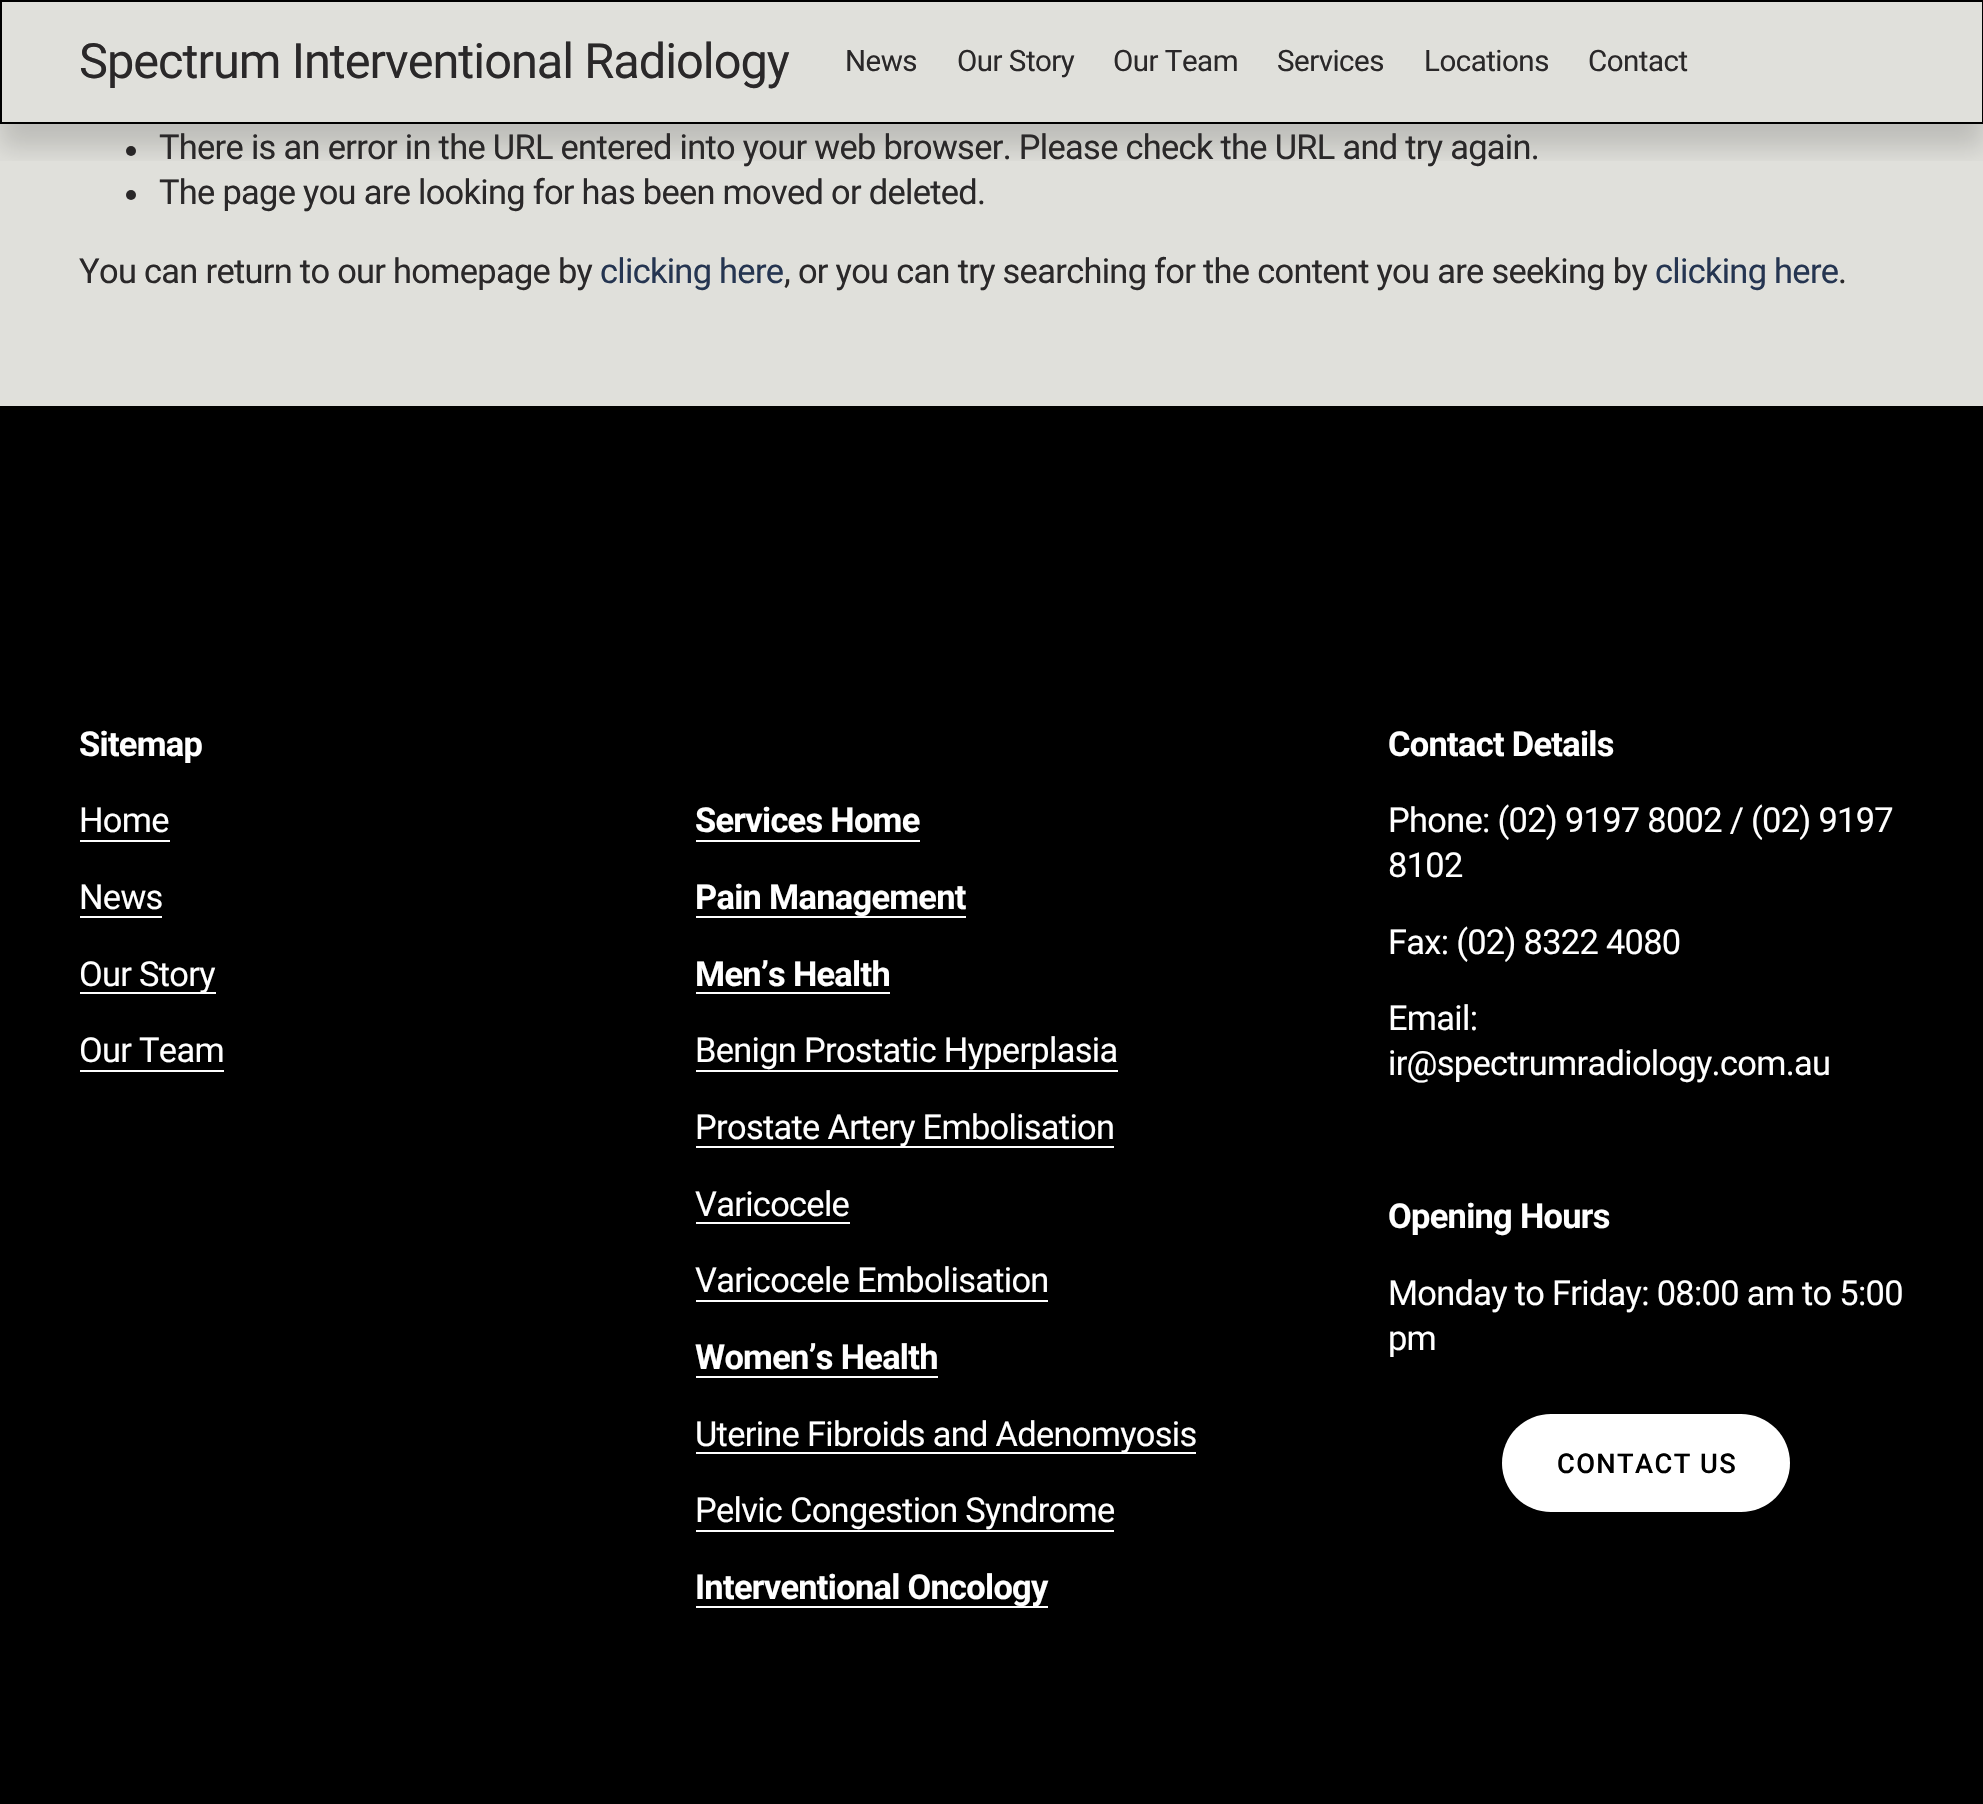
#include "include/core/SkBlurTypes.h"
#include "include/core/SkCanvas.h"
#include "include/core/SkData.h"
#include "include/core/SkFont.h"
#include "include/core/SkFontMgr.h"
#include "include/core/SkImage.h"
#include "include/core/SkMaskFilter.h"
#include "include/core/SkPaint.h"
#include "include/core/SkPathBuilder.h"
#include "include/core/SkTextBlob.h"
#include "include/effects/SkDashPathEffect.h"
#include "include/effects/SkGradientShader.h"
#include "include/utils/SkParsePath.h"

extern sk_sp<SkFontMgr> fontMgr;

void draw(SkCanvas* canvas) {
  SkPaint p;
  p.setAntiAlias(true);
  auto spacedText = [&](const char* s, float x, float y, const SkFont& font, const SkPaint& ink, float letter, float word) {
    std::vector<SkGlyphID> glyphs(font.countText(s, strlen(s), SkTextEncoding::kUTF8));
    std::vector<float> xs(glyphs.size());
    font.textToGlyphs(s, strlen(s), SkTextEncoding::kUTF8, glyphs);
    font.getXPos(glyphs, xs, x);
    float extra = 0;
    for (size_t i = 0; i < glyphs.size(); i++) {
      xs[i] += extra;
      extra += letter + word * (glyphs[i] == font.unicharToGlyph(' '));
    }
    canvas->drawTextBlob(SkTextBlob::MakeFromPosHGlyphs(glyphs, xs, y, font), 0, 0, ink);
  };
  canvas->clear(SkColorSetRGB(224, 224, 219));
  p.setColor(SkColorSetRGB(42, 40, 41));
  canvas->drawCircle(131, 151, 5, p);
  canvas->save();
  canvas->clipRect(SkRect::MakeLTRB(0, 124, 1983, 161));
  p.setColor(SkColorSetARGB(38, 0, 0, 0));
  p.setMaskFilter(SkMaskFilter::MakeBlur(kNormal_SkBlurStyle, 12));
  canvas->drawRect(SkRect::MakeLTRB(0, 24, 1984, 148), p);
  p.setMaskFilter(nullptr);
  canvas->restore();
  p.setStyle(SkPaint::kStroke_Style);
  p.setStrokeWidth(2);
  p.setColor(SK_ColorBLACK);
  canvas->drawRect(SkRect::MakeLTRB(1, 1, 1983, 123), p);
  p.setStyle(SkPaint::kFill_Style);
  p.setColor(SkColorSetRGB(42, 40, 41));
  canvas->drawCircle(131, 195, 5, p);
  p.setColor(SK_ColorBLACK);
  canvas->drawRect(SkRect::MakeLTRB(0, 406, 1983, 1804), p);
  p.setColor(SK_ColorWHITE);
  canvas->drawRect(SkRect::MakeLTRB(80, 840, 170, 842), p);
  canvas->drawRect(SkRect::MakeLTRB(80, 916, 162, 918), p);
  canvas->drawRect(SkRect::MakeLTRB(80, 992, 216, 994), p);
  canvas->drawRect(SkRect::MakeLTRB(80, 1070, 224, 1072), p);
  canvas->drawRect(SkRect::MakeLTRB(696, 840, 920, 842), p);
  canvas->drawRect(SkRect::MakeLTRB(696, 916, 966, 918), p);
  canvas->drawRect(SkRect::MakeLTRB(696, 992, 890, 994), p);
  canvas->drawRect(SkRect::MakeLTRB(696, 1070, 1118, 1072), p);
  canvas->drawRect(SkRect::MakeLTRB(696, 1146, 1114, 1148), p);
  canvas->drawRect(SkRect::MakeLTRB(696, 1222, 850, 1224), p);
  canvas->drawRect(SkRect::MakeLTRB(696, 1300, 1048, 1302), p);
  canvas->drawRect(SkRect::MakeLTRB(696, 1376, 938, 1378), p);
  canvas->drawRect(SkRect::MakeLTRB(696, 1452, 1196, 1454), p);
  canvas->drawRect(SkRect::MakeLTRB(696, 1530, 1114, 1532), p);
  canvas->drawRect(SkRect::MakeLTRB(696, 1606, 1048, 1608), p);
  canvas->drawRoundRect(SkRect::MakeLTRB(1502, 1414, 1790, 1512), 49, 49, p);
  SkFont font1(fontMgr->matchFamilyStyle("Roboto", SkFontStyle::Normal()), 48.7f);
  font1.setSubpixel(true);
  p.setColor(SkColorSetRGB(42, 40, 41));
  spacedText("Spectrum Interventional Radiology", 79, 78, font1, p, -1, 0);
  SkFont font2(fontMgr->matchFamilyStyle("Roboto", SkFontStyle::Normal()), 29.5f);
  font2.setSubpixel(true);
  spacedText("News", 845, 71, font2, p, -0.5f, 0);
  spacedText("Our Story", 957, 71, font2, p, -0.5f, 0);
  spacedText("Our Team", 1113, 71, font2, p, -0.5f, 0);
  spacedText("Services", 1277, 71, font2, p, -0.5f, 0);
  spacedText("Locations", 1424, 71, font2, p, -0.5f, 0);
  spacedText("Contact", 1588, 71, font2, p, -0.5f, 0);
  SkFont font3(fontMgr->matchFamilyStyle("Roboto", SkFontStyle::Normal()), 34.4f);
  font3.setSubpixel(true);
  spacedText("There is an error in the URL entered into your web browser. Please check the URL and try again.", 159, 159, font3, p, -0.7f, 0);
  spacedText("The page you are looking for has been moved or deleted.", 159, 204, font3, p, -0.7f, 0);
  spacedText("You can return to our homepage by", 79, 283, font3, p, -0.7f, 0);
  p.setColor(SkColorSetRGB(37, 53, 81));
  spacedText("clicking here", 600, 283, font3, p, -0.7f, 0);
  p.setColor(SkColorSetRGB(42, 40, 41));
  spacedText(", or you can try searching for the content you are seeking by", 784, 283, font3, p, -0.7f, 0);
  p.setColor(SkColorSetRGB(37, 53, 81));
  spacedText("clicking here", 1655, 283, font3, p, -0.7f, 0);
  p.setColor(SkColorSetRGB(42, 40, 41));
  spacedText(".", 1838, 283, font3, p, -0.7f, 0);
  SkFont font4(fontMgr->matchFamilyStyle("Roboto", SkFontStyle::Bold()), 34.4f);
  font4.setSubpixel(true);
  p.setColor(SK_ColorWHITE);
  spacedText("Sitemap", 79, 756, font4, p, -0.7f, 0);
  spacedText("Home", 79, 832, font3, p, -0.7f, 0);
  spacedText("News", 79, 909, font3, p, -0.7f, 0);
  spacedText("Our Story", 79, 986, font3, p, -0.7f, 0);
  spacedText("Our Team", 79, 1062, font3, p, -0.7f, 0);
  spacedText("Services Home", 695, 832, font4, p, -0.7f, 0);
  spacedText("Pain Management", 695, 909, font4, p, -0.7f, 0);
  spacedText("Men’s Health", 695, 986, font4, p, -0.7f, 0);
  spacedText("Benign Prostatic Hyperplasia", 695, 1062, font3, p, -0.7f, 0);
  spacedText("Prostate Artery Embolisation", 695, 1139, font3, p, -0.7f, 0);
  spacedText("Varicocele", 695, 1216, font3, p, -0.7f, 0);
  spacedText("Varicocele Embolisation", 695, 1292, font3, p, -0.7f, 0);
  spacedText("Women’s Health", 695, 1369, font4, p, -0.7f, 0);
  spacedText("Uterine Fibroids and Adenomyosis", 695, 1446, font3, p, -0.7f, 0);
  spacedText("Pelvic Congestion Syndrome", 695, 1522, font3, p, -0.7f, 0);
  spacedText("Interventional Oncology", 695, 1599, font4, p, -0.7f, 0);
  spacedText("Contact Details", 1388, 756, font4, p, -0.7f, 0);
  spacedText("Phone: (02) 9197 8002 / (02) 9197", 1388, 832, font3, p, -0.7f, 0);
  spacedText("8102", 1388, 877, font3, p, -0.7f, 0);
  spacedText("Fax: (02) 8322 4080", 1388, 954, font3, p, -0.7f, 0);
  spacedText("Email:", 1388, 1030, font3, p, -0.7f, 0);
  spacedText("ir@spectrumradiology.com.au", 1388, 1075, font3, p, -0.7f, 0);
  spacedText("Opening Hours", 1388, 1228, font4, p, -0.7f, 0);
  spacedText("Monday to Friday: 08:00 am to 5:00", 1388, 1305, font3, p, -0.7f, 0);
  spacedText("pm", 1388, 1350, font3, p, -0.7f, 0);
  SkFont font5(fontMgr->matchFamilyStyle("Roboto", SkFontStyle(500, SkFontStyle::kNormal_Width, SkFontStyle::kUpright_Slant)), 27.25f);
  font5.setSubpixel(true);
  p.setColor(SK_ColorBLACK);
  spacedText("CONTACT US", 1557, 1473, font5, p, 1.4f, 0);
}
